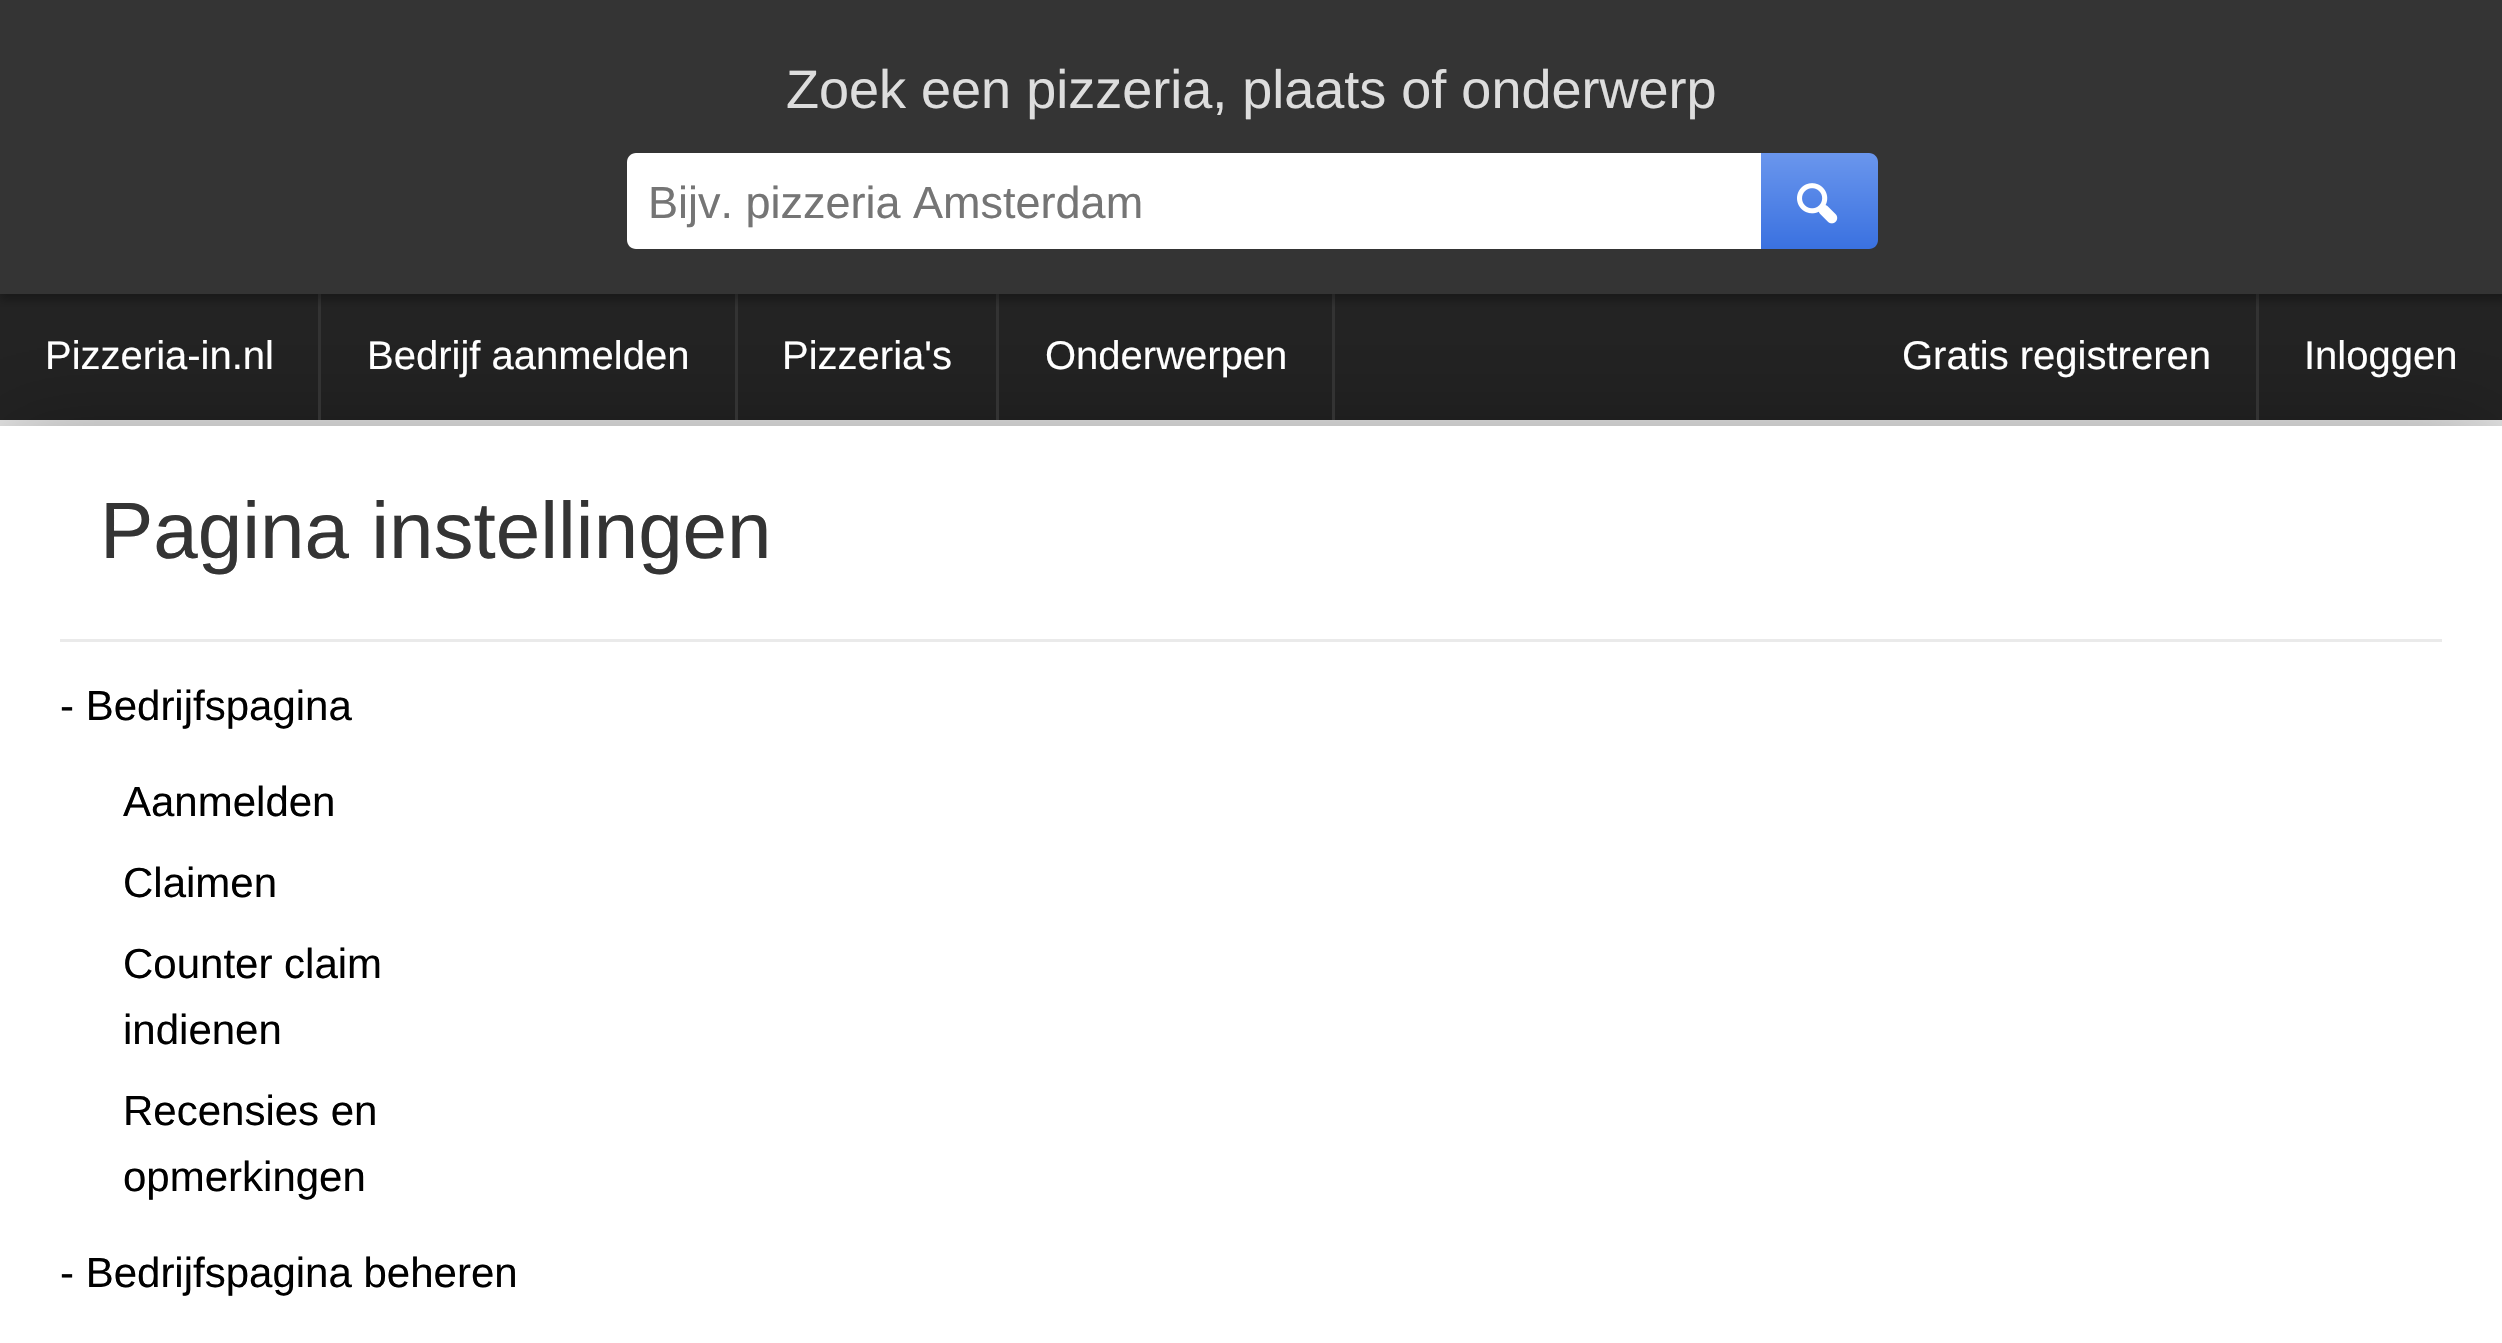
#include "include/core/SkBlurTypes.h"
#include "include/core/SkCanvas.h"
#include "include/core/SkData.h"
#include "include/core/SkFont.h"
#include "include/core/SkFontMgr.h"
#include "include/core/SkImage.h"
#include "include/core/SkMaskFilter.h"
#include "include/core/SkPaint.h"
#include "include/core/SkPathBuilder.h"
#include "include/core/SkTextBlob.h"
#include "include/effects/SkDashPathEffect.h"
#include "include/effects/SkGradientShader.h"
#include "include/utils/SkParsePath.h"

extern sk_sp<SkFontMgr> fontMgr;

void draw(SkCanvas* canvas) {
  SkPaint p;
  p.setAntiAlias(true);
  canvas->clear(SkColorSetRGB(232, 232, 232));
  p.setColor(SkColorSetRGB(35, 35, 35));
  canvas->drawRect(SkRect::MakeLTRB(0, 294, 2502, 420), p);
  p.setColor(SkColorSetARGB(77, 0, 0, 0));
  p.setMaskFilter(SkMaskFilter::MakeBlur(kNormal_SkBlurStyle, 45));
  canvas->drawRect(SkRect::MakeLTRB(0, 426, 2502, 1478), p);
  p.setMaskFilter(nullptr);
  p.setColor(SkColorSetRGB(52, 52, 52));
  canvas->drawRect(SkRect::MakeLTRB(0, 0, 2502, 294), p);
  p.setColor(SkColorSetRGB(51, 51, 51));
  canvas->drawRect(SkRect::MakeLTRB(318, 294, 321, 420), p);
  canvas->drawRect(SkRect::MakeLTRB(735, 294, 738, 420), p);
  canvas->drawRect(SkRect::MakeLTRB(996, 294, 999, 420), p);
  canvas->drawRect(SkRect::MakeLTRB(1332, 294, 1335, 420), p);
  canvas->drawRect(SkRect::MakeLTRB(2256, 294, 2259, 420), p);
  canvas->save();
  canvas->clipRect(SkRect::MakeLTRB(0, 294, 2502, 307));
  p.setColor(SkColorSetARGB(77, 0, 0, 0));
  p.setMaskFilter(SkMaskFilter::MakeBlur(kNormal_SkBlurStyle, 4.5f));
  canvas->drawRect(SkRect::MakeLTRB(0, 0, 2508, 300), p);
  p.setMaskFilter(nullptr);
  canvas->restore();
  p.setColor(SK_ColorWHITE);
  canvas->drawPath(SkPathBuilder().moveTo(636, 153).lineTo(1806, 153).lineTo(1806, 249).lineTo(636, 249).cubicTo(631, 249, 627, 245, 627, 240).lineTo(627, 162).cubicTo(627, 157, 631, 153, 636, 153).close().detach(), p);
  {
    const SkColor colors[] = {SkColorSetRGB(106, 150, 237), SkColorSetRGB(58, 113, 224)};
    const float stops[] = {0, 1};
    const SkPoint ends[] = {{1820, 153}, {1820, 249}};
    p.setShader(SkGradientShader::MakeLinear(ends, colors, stops, 2, SkTileMode::kClamp));
    p.setAlpha(255);
  }
  canvas->drawPath(SkPathBuilder().moveTo(1761, 153).lineTo(1869, 153).cubicTo(1874, 153, 1878, 157, 1878, 162).lineTo(1878, 240).cubicTo(1878, 245, 1874, 249, 1869, 249).lineTo(1761, 249).close().detach(), p);
  canvas->drawImageRect(SkImages::DeferredFromEncodedData(SkData::MakeFromFileName("images/1.png")), SkRect::MakeLTRB(1797, 183, 1838, 224), SkSamplingOptions());
  p.setShader(nullptr);
  p.setColor(SK_ColorWHITE);
  canvas->drawRect(SkRect::MakeLTRB(0, 426, 2502, 1343), p);
  p.setColor(SkColorSetRGB(234, 234, 234));
  canvas->drawRect(SkRect::MakeLTRB(60, 639, 2442, 642), p);
  SkFont font1(fontMgr->matchFamilyStyle("Liberation Sans", SkFontStyle::Normal()), 54);
  font1.setSubpixel(true);
  p.setColor(SkColorSetRGB(221, 221, 221));
  canvas->drawString("Zoek een pizzeria, plaats of onderwerp", 786, 108, font1, p);
  SkFont font2(fontMgr->matchFamilyStyle("Liberation Sans", SkFontStyle::Normal()), 45);
  font2.setSubpixel(true);
  p.setColor(SkColorSetRGB(117, 117, 117));
  canvas->drawString("Bijv. pizzeria Amsterdam", 648, 218, font2, p);
  SkFont font3(fontMgr->matchFamilyStyle("Liberation Sans", SkFontStyle::Normal()), 40);
  font3.setSubpixel(true);
  p.setColor(SK_ColorWHITE);
  canvas->drawString("Pizzeria-in.nl", 45, 369, font3, p);
  canvas->drawString("Bedrijf aanmelden", 367, 369, font3, p);
  canvas->drawString("Pizzeria's", 782, 369, font3, p);
  canvas->drawString("Onderwerpen", 1045, 369, font3, p);
  canvas->drawString("Gratis registreren", 1902, 369, font3, p);
  canvas->drawString("Inloggen", 2304, 369, font3, p);
  SkFont font4(fontMgr->matchFamilyStyle("Liberation Sans", SkFontStyle::Normal()), 80);
  font4.setSubpixel(true);
  p.setColor(SkColorSetRGB(52, 52, 52));
  canvas->drawString("Pagina instellingen", 100, 558, font4, p);
  SkFont font5(fontMgr->matchFamilyStyle("Liberation Sans", SkFontStyle::Normal()), 42);
  font5.setSubpixel(true);
  p.setColor(SK_ColorBLACK);
  canvas->drawString("- Bedrijfspagina", 60, 720, font5, p);
  canvas->drawString("Aanmelden", 123, 816, font5, p);
  canvas->drawString("Claimen", 123, 897, font5, p);
  canvas->drawString("Counter claim", 123, 978, font5, p);
  canvas->drawString("indienen", 123, 1044, font5, p);
  canvas->drawString("Recensies en", 123, 1125, font5, p);
  canvas->drawString("opmerkingen", 123, 1191, font5, p);
  canvas->drawString("- Bedrijfspagina beheren", 60, 1287, font5, p);
}
